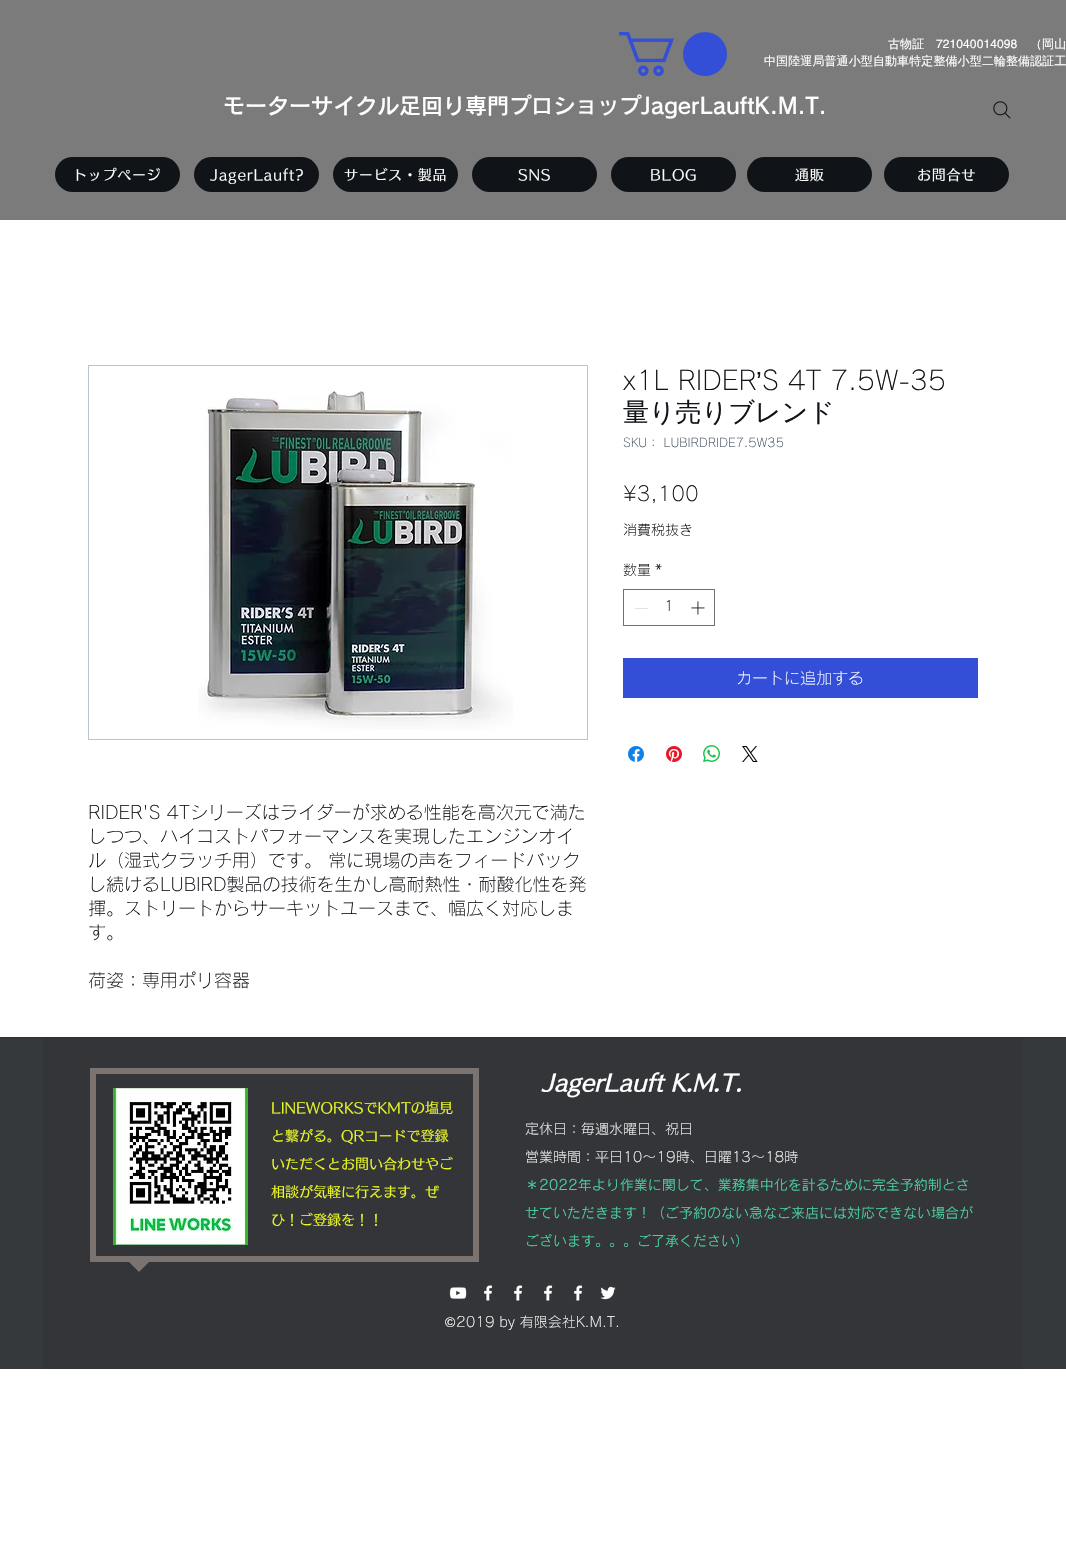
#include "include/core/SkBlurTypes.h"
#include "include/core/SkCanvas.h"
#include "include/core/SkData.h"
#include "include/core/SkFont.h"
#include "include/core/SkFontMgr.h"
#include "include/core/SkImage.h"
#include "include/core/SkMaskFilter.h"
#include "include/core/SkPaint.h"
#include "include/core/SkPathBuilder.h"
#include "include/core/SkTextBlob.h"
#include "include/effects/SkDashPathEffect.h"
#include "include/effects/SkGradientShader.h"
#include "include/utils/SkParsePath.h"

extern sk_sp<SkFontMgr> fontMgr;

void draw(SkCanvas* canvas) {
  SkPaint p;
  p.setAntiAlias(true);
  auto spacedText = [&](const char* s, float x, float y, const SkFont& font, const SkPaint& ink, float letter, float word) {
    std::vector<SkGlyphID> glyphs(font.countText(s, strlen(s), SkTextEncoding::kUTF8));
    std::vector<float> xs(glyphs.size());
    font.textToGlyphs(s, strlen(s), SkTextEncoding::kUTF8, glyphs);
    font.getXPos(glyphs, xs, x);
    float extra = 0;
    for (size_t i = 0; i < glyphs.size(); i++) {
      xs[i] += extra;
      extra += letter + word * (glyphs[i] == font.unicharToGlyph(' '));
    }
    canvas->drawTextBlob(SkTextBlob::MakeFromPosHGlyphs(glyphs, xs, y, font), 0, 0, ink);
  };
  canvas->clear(SK_ColorWHITE);
  p.setColor(SkColorSetRGB(123, 123, 123));
  canvas->drawRect(SkRect::MakeLTRB(0, 0, 1066, 220), p);
  canvas->drawImageRect(SkImages::DeferredFromEncodedData(SkData::MakeFromFileName("images/1.png")), SkRect::MakeLTRB(619, 32, 727, 76), SkSamplingOptions());
  canvas->drawImageRect(SkImages::DeferredFromEncodedData(SkData::MakeFromFileName("images/2.png")), SkRect::MakeLTRB(993, 101, 1011, 119), SkSamplingOptions());
  p.setColor(SkColorSetRGB(16, 19, 23));
  canvas->drawRoundRect(SkRect::MakeLTRB(55, 157, 180, 192), 17.5f, 17.5f, p);
  canvas->drawRoundRect(SkRect::MakeLTRB(194, 157, 319, 192), 17.5f, 17.5f, p);
  canvas->drawRoundRect(SkRect::MakeLTRB(333, 157, 458, 192), 17.5f, 17.5f, p);
  canvas->drawRoundRect(SkRect::MakeLTRB(472, 157, 597, 192), 17.5f, 17.5f, p);
  canvas->drawRoundRect(SkRect::MakeLTRB(611, 157, 736, 192), 17.5f, 17.5f, p);
  canvas->drawRoundRect(SkRect::MakeLTRB(747, 157, 872, 192), 17.5f, 17.5f, p);
  canvas->drawRoundRect(SkRect::MakeLTRB(884, 157, 1009, 192), 17.5f, 17.5f, p);
  p.setStyle(SkPaint::kStroke_Style);
  p.setStrokeWidth(1);
  p.setColor(SkColorSetRGB(112, 113, 116));
  canvas->drawRect(SkRect::MakeLTRB(623.5f, 589.5f, 714.5f, 625.5f), p);
  p.setStyle(SkPaint::kFill_Style);
  p.setColor(SkColorSetRGB(227, 227, 227));
  canvas->drawRect(SkRect::MakeLTRB(635, 608, 648, 609), p);
  canvas->drawImageRect(SkImages::DeferredFromEncodedData(SkData::MakeFromFileName("images/3.png")), SkRect::MakeLTRB(691, 601, 705, 615), SkSamplingOptions());
  p.setColor(SkColorSetRGB(51, 78, 215));
  canvas->drawRect(SkRect::MakeLTRB(623, 658, 978, 698), p);
  canvas->drawImageRect(SkImages::DeferredFromEncodedData(SkData::MakeFromFileName("images/4.png")), SkRect::MakeLTRB(628, 746, 644, 762), SkSamplingOptions());
  canvas->drawImageRect(SkImages::DeferredFromEncodedData(SkData::MakeFromFileName("images/5.png")), SkRect::MakeLTRB(666, 746, 682, 762), SkSamplingOptions());
  canvas->drawImageRect(SkImages::DeferredFromEncodedData(SkData::MakeFromFileName("images/6.png")), SkRect::MakeLTRB(703, 745, 720, 762), SkSamplingOptions());
  canvas->drawImageRect(SkImages::DeferredFromEncodedData(SkData::MakeFromFileName("images/7.png")), SkRect::MakeLTRB(742, 746, 758, 762), SkSamplingOptions());
  p.setStyle(SkPaint::kStroke_Style);
  p.setColor(SkColorSetRGB(186, 195, 207));
  canvas->drawRect(SkRect::MakeLTRB(88.5f, 365.5f, 587.5f, 739.5f), p);
  canvas->drawImageRect(SkImages::DeferredFromEncodedData(SkData::MakeFromFileName("images/8.png")), SkRect::MakeLTRB(198, 390, 513, 730), SkSamplingOptions());
  p.setStyle(SkPaint::kFill_Style);
  p.setColor(SkColorSetRGB(54, 57, 60));
  canvas->drawRect(SkRect::MakeLTRB(0, 1038, 1066, 1369), p);
  p.setColor(SkColorSetRGB(48, 51, 54));
  canvas->drawRect(SkRect::MakeLTRB(0, 1037, 1066, 1038), p);
  p.setColor(SkColorSetRGB(51, 53, 57));
  canvas->drawRect(SkRect::MakeLTRB(43, 1038, 1023, 1369), p);
  p.setStyle(SkPaint::kStroke_Style);
  p.setStrokeWidth(6);
  p.setColor(SkColorSetRGB(123, 115, 111));
  canvas->drawRect(SkRect::MakeLTRB(93, 1071, 476, 1259), p);
  canvas->drawImageRect(SkImages::DeferredFromEncodedData(SkData::MakeFromFileName("images/9.png")), SkRect::MakeLTRB(113, 1088, 248, 1245), SkSamplingOptions());
  p.setStyle(SkPaint::kFill_Style);
  canvas->drawPath(SkPathBuilder().moveTo(129, 1262).lineTo(149, 1262).lineTo(139, 1272).close().detach(), p);
  canvas->drawImageRect(SkImages::DeferredFromEncodedData(SkData::MakeFromFileName("images/10.png")), SkRect::MakeLTRB(449, 1287, 467, 1299), SkSamplingOptions());
  canvas->drawImageRect(SkImages::DeferredFromEncodedData(SkData::MakeFromFileName("images/11.png")), SkRect::MakeLTRB(484, 1285, 493, 1301), SkSamplingOptions());
  canvas->drawImageRect(SkImages::DeferredFromEncodedData(SkData::MakeFromFileName("images/11.png")), SkRect::MakeLTRB(514, 1285, 523, 1301), SkSamplingOptions());
  canvas->drawImageRect(SkImages::DeferredFromEncodedData(SkData::MakeFromFileName("images/11.png")), SkRect::MakeLTRB(544, 1285, 553, 1301), SkSamplingOptions());
  canvas->drawImageRect(SkImages::DeferredFromEncodedData(SkData::MakeFromFileName("images/11.png")), SkRect::MakeLTRB(574, 1285, 583, 1301), SkSamplingOptions());
  canvas->drawImageRect(SkImages::DeferredFromEncodedData(SkData::MakeFromFileName("images/12.png")), SkRect::MakeLTRB(600, 1286, 616, 1300), SkSamplingOptions());
  SkFont font1(fontMgr->matchFamilyStyle("WenQuanYi Zen Hei", SkFontStyle(500, SkFontStyle::kNormal_Width, SkFontStyle::kUpright_Slant)), 12);
  font1.setSubpixel(true);
  p.setColor(SK_ColorWHITE);
  spacedText("古物証", 888, 48, font1, p, 0.1f, 0);
  SkFont font2(fontMgr->matchFamilyStyle("helvetica", SkFontStyle::Normal()), 12);
  font2.setSubpixel(true);
  spacedText("721040014098", 936, 48, font2, p, 0.1f, 0);
  spacedText("（岡山", 1030, 48, font1, p, 0.1f, 0);
  spacedText("中国陸運局普通小型自動車特定整備小型二輪整備認証工", 764, 65, font1, p, 0.1f, 0);
  SkFont font3(fontMgr->matchFamilyStyle("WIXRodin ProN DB", SkFontStyle(600, SkFontStyle::kNormal_Width, SkFontStyle::kUpright_Slant)), 22);
  font3.setSubpixel(true);
  canvas->drawString("モーターサイクル足回り専門プロショップJagerLauftK.M.T.", 223, 114, font3, p);
  SkFont font4(fontMgr->matchFamilyStyle("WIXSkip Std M", SkFontStyle(500, SkFontStyle::kNormal_Width, SkFontStyle::kUpright_Slant)), 14);
  font4.setSubpixel(true);
  spacedText("トップページ", 73, 180, font4, p, 0.75f, 0);
  spacedText("JagerLauft?", 210, 180, font4, p, 0.75f, 0);
  spacedText("サービス・製品", 344, 180, font4, p, 0.75f, 0);
  spacedText("SNS", 518, 180, font4, p, 0.75f, 0);
  spacedText("BLOG", 650, 180, font4, p, 0.75f, 0);
  spacedText("通販", 795, 180, font4, p, 0.75f, 0);
  spacedText("お問合せ", 917, 180, font4, p, 0.75f, 0);
  SkFont font5(fontMgr->matchFamilyStyle("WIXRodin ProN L", SkFontStyle(300, SkFontStyle::kNormal_Width, SkFontStyle::kUpright_Slant)), 26);
  font5.setSubpixel(true);
  p.setColor(SkColorSetRGB(16, 19, 23));
  canvas->drawString("x1L RIDER", 623, 390, font5, p);
  SkFont font6(fontMgr->matchFamilyStyle("Liberation Sans", SkFontStyle::Normal()), 26);
  font6.setSubpixel(true);
  canvas->drawString("’", 756, 390, font6, p);
  canvas->drawString("S 4T 7.5W-35", 762, 390, font5, p);
  SkFont font7(fontMgr->matchFamilyStyle("WenQuanYi Zen Hei", SkFontStyle(500, SkFontStyle::kNormal_Width, SkFontStyle::kUpright_Slant)), 26);
  font7.setSubpixel(true);
  canvas->drawString("量り売りブレンド", 623, 421, font7, p);
  SkFont font8(fontMgr->matchFamilyStyle("WIXRodin ProN L", SkFontStyle(300, SkFontStyle::kNormal_Width, SkFontStyle::kUpright_Slant)), 12);
  font8.setSubpixel(true);
  p.setColor(SkColorSetRGB(64, 76, 92));
  canvas->drawString("SKU： LUBIRDRIDE7.5W35", 623, 447, font8, p);
  SkFont font9(fontMgr->matchFamilyStyle("WIXRodin ProN L", SkFontStyle(300, SkFontStyle::kNormal_Width, SkFontStyle::kUpright_Slant)), 20);
  font9.setSubpixel(true);
  p.setColor(SkColorSetRGB(16, 19, 23));
  canvas->drawString("¥3,100", 623, 501, font9, p);
  SkFont font10(fontMgr->matchFamilyStyle("WIXRodin ProN L", SkFontStyle(300, SkFontStyle::kNormal_Width, SkFontStyle::kUpright_Slant)), 14);
  font10.setSubpixel(true);
  p.setColor(SK_ColorBLACK);
  canvas->drawString("消費税抜き", 623, 535, font10, p);
  p.setColor(SkColorSetRGB(16, 19, 23));
  canvas->drawString("数量", 623, 575, font10, p);
  canvas->drawString("*", 655, 575, font10, p);
  canvas->drawString("1", 664, 611, font10, p);
  SkFont font11(fontMgr->matchFamilyStyle("WIXRodin ProN L", SkFontStyle(300, SkFontStyle::kNormal_Width, SkFontStyle::kUpright_Slant)), 16);
  font11.setSubpixel(true);
  p.setColor(SK_ColorWHITE);
  canvas->drawString("カートに追加する", 736, 684, font11, p);
  SkFont font12(fontMgr->matchFamilyStyle("WIXRodin ProN L", SkFontStyle(300, SkFontStyle::kNormal_Width, SkFontStyle::kUpright_Slant)), 18);
  font12.setSubpixel(true);
  p.setColor(SkColorSetRGB(16, 19, 23));
  canvas->drawString("RIDER'S 4Tシリーズはライダーが求める性能を高次元で満た", 88, 819, font12, p);
  canvas->drawString("しつつ、ハイコストパフォーマンスを実現したエンジンオイ", 88, 843, font12, p);
  canvas->drawString("ル（湿式クラッチ用）です。 常に現場の声をフィードバック", 88, 867, font12, p);
  canvas->drawString("し続けるLUBIRD製品の技術を生かし高耐熱性・耐酸化性を発", 88, 891, font12, p);
  canvas->drawString("揮。ストリートからサーキットユースまで、幅広く対応しま", 88, 915, font12, p);
  canvas->drawString("す。", 88, 939, font12, p);
  canvas->drawString("荷姿：専用ポリ容器", 88, 987, font12, p);
  SkFont font13(fontMgr->matchFamilyStyle("WIXSkip Std M", SkFontStyle::BoldItalic()), 22);
  font13.setSubpixel(true);
  p.setColor(SK_ColorWHITE);
  canvas->drawString("JagerLauft K.M.T.", 541, 1091, font13, p);
  p.setColor(SkColorSetRGB(233, 247, 37));
  canvas->drawString("LINEWORKSでKMTの塩見", 271, 1113, font4, p);
  canvas->drawString("と繋がる。QRコードで登録", 271, 1141, font4, p);
  canvas->drawString("いただくとお問い合わせやご", 271, 1169, font4, p);
  canvas->drawString("相談が気軽に行えます。ぜ", 271, 1197, font4, p);
  canvas->drawString("ひ！ご登録を！！", 271, 1225, font4, p);
  p.setColor(SK_ColorWHITE);
  canvas->drawString("定休日：毎週水曜日、祝日", 525, 1134, font10, p);
  canvas->drawString("営業時間：平日10～19時、日曜13～18時", 525, 1162, font10, p);
  SkFont font14(fontMgr->matchFamilyStyle("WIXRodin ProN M", SkFontStyle(500, SkFontStyle::kNormal_Width, SkFontStyle::kUpright_Slant)), 14);
  font14.setSubpixel(true);
  p.setColor(SkColorSetRGB(75, 209, 160));
  canvas->drawString("＊2022年より作業に関して、業務集中化を計るために完全予約制とさ", 525, 1190, font14, p);
  canvas->drawString("せていただきます！（ご予約のない急なご来店には対応できない場合が", 525, 1218, font14, p);
  canvas->drawString("ございます。。。ご了承ください）", 525, 1246, font14, p);
  SkFont font15(fontMgr->matchFamilyStyle("Liberation Sans", SkFontStyle::Normal()), 14);
  font15.setSubpixel(true);
  p.setColor(SK_ColorWHITE);
  canvas->drawString("©", 445, 1327, font15, p);
  canvas->drawString("2019 by 有限会社K.M.T.", 456, 1327, font10, p);
}
